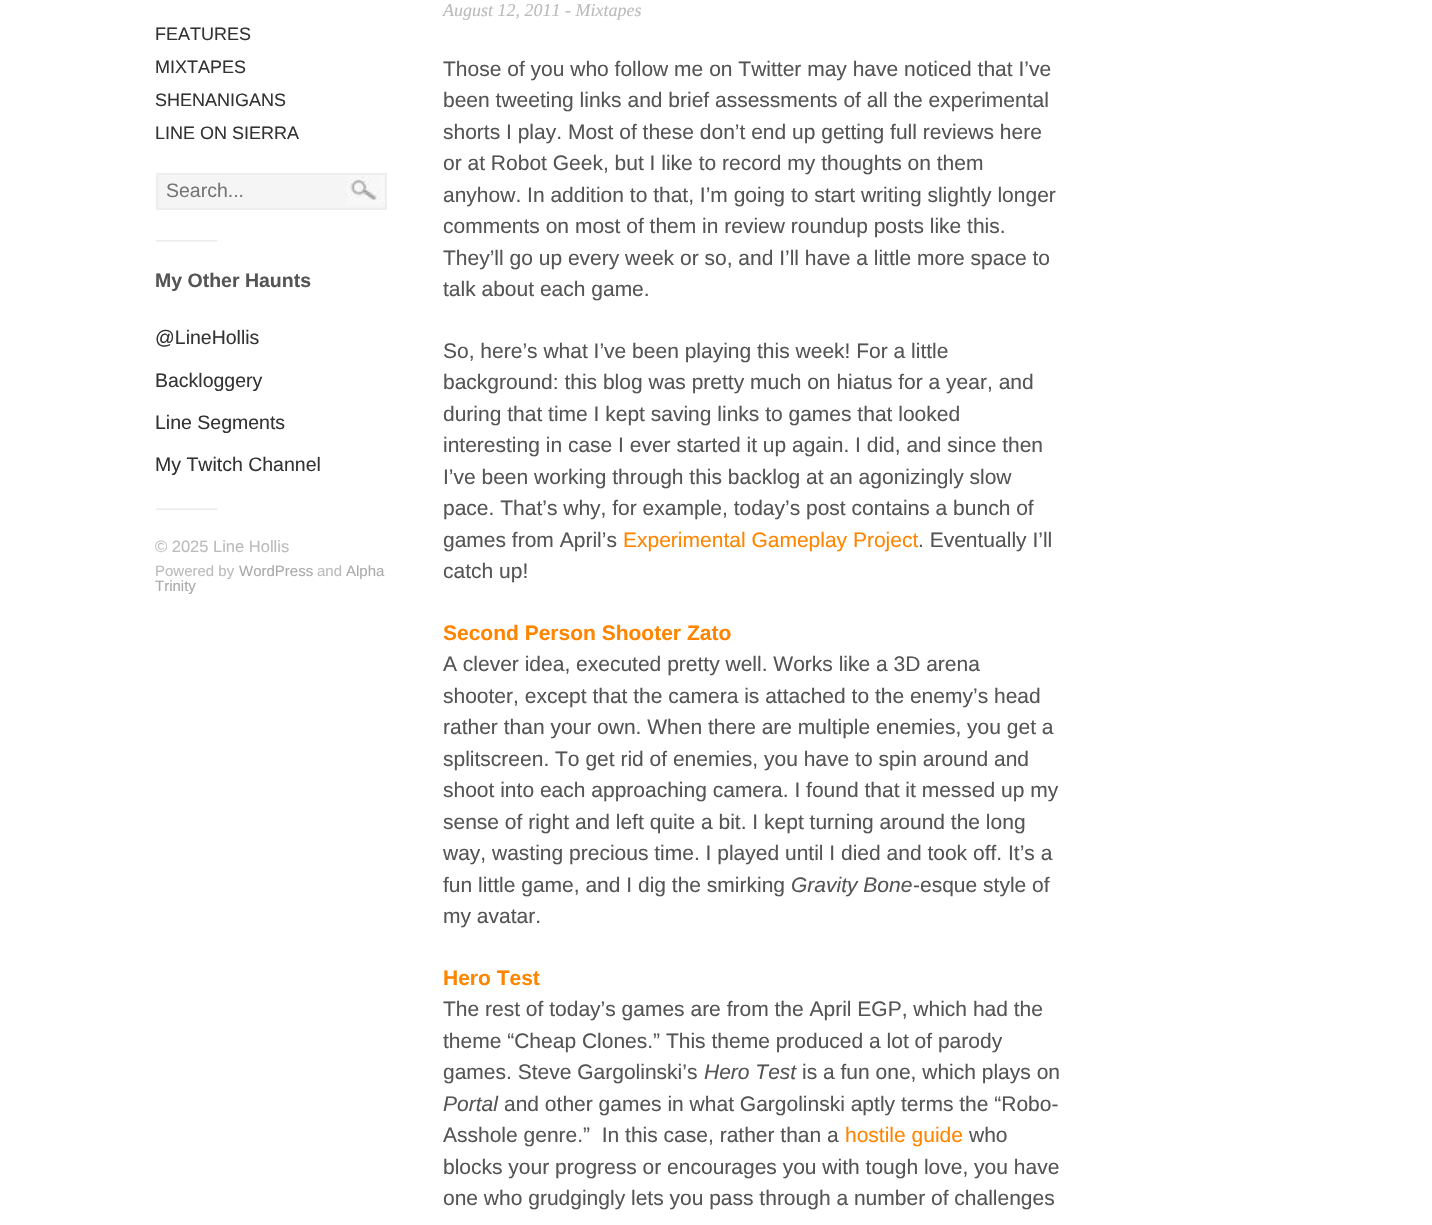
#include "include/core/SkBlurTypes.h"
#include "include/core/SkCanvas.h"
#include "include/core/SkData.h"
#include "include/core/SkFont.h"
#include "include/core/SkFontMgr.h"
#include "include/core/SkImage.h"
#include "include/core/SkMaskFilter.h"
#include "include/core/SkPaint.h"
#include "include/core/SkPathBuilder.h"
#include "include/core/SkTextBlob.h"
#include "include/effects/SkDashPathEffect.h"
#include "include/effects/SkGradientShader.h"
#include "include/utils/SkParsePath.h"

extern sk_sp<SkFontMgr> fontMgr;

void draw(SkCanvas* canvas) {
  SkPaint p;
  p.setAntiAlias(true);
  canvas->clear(SK_ColorWHITE);
  p.setColor(SkColorSetRGB(245, 245, 245));
  canvas->drawRect(SkRect::MakeLTRB(158, 175, 385, 208), p);
  canvas->drawImageRect(SkImages::DeferredFromEncodedData(SkData::MakeFromFileName("images/1.png")), SkRect::MakeLTRB(346, 175, 385, 206), SkSamplingOptions());
  p.setStyle(SkPaint::kStroke_Style);
  p.setStrokeWidth(2);
  p.setColor(SkColorSetRGB(238, 238, 238));
  canvas->drawRect(SkRect::MakeLTRB(157, 174, 386, 209), p);
  canvas->drawImageRect(SkImages::DeferredFromEncodedData(SkData::MakeFromFileName("images/2.png")), SkRect::MakeLTRB(156, 240, 218, 242), SkSamplingOptions());
  canvas->drawImageRect(SkImages::DeferredFromEncodedData(SkData::MakeFromFileName("images/3.png")), SkRect::MakeLTRB(156, 508, 218, 510), SkSamplingOptions());
  SkFont font1(fontMgr->matchFamilyStyle("Liberation Sans", SkFontStyle::Normal()), 18);
  font1.setSubpixel(true);
  p.setStyle(SkPaint::kFill_Style);
  p.setColor(SkColorSetRGB(51, 51, 51));
  canvas->drawString("FEATURES", 155, 40, font1, p);
  canvas->drawString("MIXTAPES", 155, 73, font1, p);
  canvas->drawString("SHENANIGANS", 155, 106, font1, p);
  canvas->drawString("LINE ON SIERRA", 155, 139, font1, p);
  SkFont font2(fontMgr->matchFamilyStyle("Liberation Sans", SkFontStyle::Normal()), 19.5f);
  font2.setSubpixel(true);
  p.setColor(SkColorSetRGB(117, 117, 117));
  canvas->drawString("Search...", 166, 197, font2, p);
  SkFont font3(fontMgr->matchFamilyStyle("Liberation Sans", SkFontStyle::Bold()), 19.5f);
  font3.setSubpixel(true);
  p.setColor(SkColorSetRGB(85, 85, 85));
  canvas->drawString("My Other Haunts", 155, 287, font3, p);
  p.setColor(SkColorSetRGB(51, 51, 51));
  canvas->drawString("@LineHollis", 155, 344, font2, p);
  canvas->drawString("Backloggery", 155, 387, font2, p);
  canvas->drawString("Line Segments", 155, 429, font2, p);
  canvas->drawString("My Twitch Channel", 155, 471, font2, p);
  SkFont font4(fontMgr->matchFamilyStyle("Liberation Sans", SkFontStyle::Normal()), 16.5f);
  font4.setSubpixel(true);
  p.setColor(SkColorSetRGB(187, 187, 187));
  canvas->drawString("© 2025 Line Hollis", 155, 552, font4, p);
  SkFont font5(fontMgr->matchFamilyStyle("Liberation Sans", SkFontStyle::Normal()), 15);
  font5.setSubpixel(true);
  canvas->drawString("Powered by", 155, 576, font5, p);
  p.setColor(SkColorSetRGB(170, 170, 170));
  canvas->drawString("WordPress", 239, 576, font5, p);
  p.setColor(SkColorSetRGB(187, 187, 187));
  canvas->drawString("and", 317, 576, font5, p);
  p.setColor(SkColorSetRGB(170, 170, 170));
  canvas->drawString("Alpha", 346, 576, font5, p);
  canvas->drawString("Trinity", 155, 591, font5, p);
  SkFont font6(fontMgr->matchFamilyStyle("Liberation Serif", SkFontStyle::Italic()), 18);
  font6.setSubpixel(true);
  p.setColor(SkColorSetRGB(187, 187, 187));
  canvas->drawString("August 12, 2011 - Mixtapes", 443, 16, font6, p);
  SkFont font7(fontMgr->matchFamilyStyle("Liberation Sans", SkFontStyle::Normal()), 21);
  font7.setSubpixel(true);
  p.setColor(SkColorSetRGB(85, 85, 85));
  canvas->drawString("Those of you who follow me on Twitter may have noticed that I’ve", 443, 76, font7, p);
  canvas->drawString("been tweeting links and brief assessments of all the experimental", 443, 107, font7, p);
  canvas->drawString("shorts I play. Most of these don’t end up getting full reviews here", 443, 139, font7, p);
  canvas->drawString("or at Robot Geek, but I like to record my thoughts on them", 443, 170, font7, p);
  canvas->drawString("anyhow. In addition to that, I’m going to start writing slightly longer", 443, 202, font7, p);
  canvas->drawString("comments on most of them in review roundup posts like this.", 443, 233, font7, p);
  canvas->drawString("They’ll go up every week or so, and I’ll have a little more space to", 443, 265, font7, p);
  canvas->drawString("talk about each game.", 443, 296, font7, p);
  canvas->drawString("So, here’s what I’ve been playing this week! For a little", 443, 358, font7, p);
  canvas->drawString("background: this blog was pretty much on hiatus for a year, and", 443, 389, font7, p);
  canvas->drawString("during that time I kept saving links to games that looked", 443, 421, font7, p);
  canvas->drawString("interesting in case I ever started it up again. I did, and since then", 443, 452, font7, p);
  canvas->drawString("I’ve been working through this backlog at an agonizingly slow", 443, 484, font7, p);
  canvas->drawString("pace. That’s why, for example, today’s post contains a bunch of", 443, 515, font7, p);
  canvas->drawString("games from April’s", 443, 547, font7, p);
  p.setColor(SkColorSetRGB(255, 133, 0));
  canvas->drawString("Experimental Gameplay Project", 623, 547, font7, p);
  p.setColor(SkColorSetRGB(85, 85, 85));
  canvas->drawString(". Eventually I’ll", 918, 547, font7, p);
  canvas->drawString("catch up!", 443, 578, font7, p);
  SkFont font8(fontMgr->matchFamilyStyle("Liberation Sans", SkFontStyle::Bold()), 21);
  font8.setSubpixel(true);
  p.setColor(SkColorSetRGB(255, 133, 0));
  canvas->drawString("Second Person Shooter Zato", 443, 640, font8, p);
  p.setColor(SkColorSetRGB(85, 85, 85));
  canvas->drawString("A clever idea, executed pretty well. Works like a 3D arena", 443, 671, font7, p);
  canvas->drawString("shooter, except that the camera is attached to the enemy’s head", 443, 703, font7, p);
  canvas->drawString("rather than your own. When there are multiple enemies, you get a", 443, 734, font7, p);
  canvas->drawString("splitscreen. To get rid of enemies, you have to spin around and", 443, 766, font7, p);
  canvas->drawString("shoot into each approaching camera. I found that it messed up my", 443, 797, font7, p);
  canvas->drawString("sense of right and left quite a bit. I kept turning around the long", 443, 829, font7, p);
  canvas->drawString("way, wasting precious time. I played until I died and took off. It’s a", 443, 860, font7, p);
  canvas->drawString("fun little game, and I dig the smirking", 443, 892, font7, p);
  SkFont font9(fontMgr->matchFamilyStyle("Liberation Sans", SkFontStyle::Italic()), 21);
  font9.setSubpixel(true);
  canvas->drawString("Gravity Bone", 791, 892, font9, p);
  canvas->drawString("-esque style of", 913, 892, font7, p);
  canvas->drawString("my avatar.", 443, 923, font7, p);
  p.setColor(SkColorSetRGB(255, 133, 0));
  canvas->drawString("Hero Test", 443, 985, font8, p);
  p.setColor(SkColorSetRGB(85, 85, 85));
  canvas->drawString("The rest of today’s games are from the April EGP, which had the", 443, 1016, font7, p);
  canvas->drawString("theme “Cheap Clones.” This theme produced a lot of parody", 443, 1048, font7, p);
  canvas->drawString("games. Steve Gargolinski’s", 443, 1079, font7, p);
  canvas->drawString("Hero Test", 704, 1079, font9, p);
  canvas->drawString("is a fun one, which plays on", 802, 1079, font7, p);
  canvas->drawString("Portal", 443, 1111, font9, p);
  canvas->drawString("and other games in what Gargolinski aptly terms the “Robo-", 504, 1111, font7, p);
  canvas->drawString("Asshole genre.”  In this case, rather than a", 443, 1142, font7, p);
  p.setColor(SkColorSetRGB(255, 133, 0));
  canvas->drawString("hostile guide", 845, 1142, font7, p);
  p.setColor(SkColorSetRGB(85, 85, 85));
  canvas->drawString("who", 969, 1142, font7, p);
  canvas->drawString("blocks your progress or encourages you with tough love, you have", 443, 1174, font7, p);
  canvas->drawString("one who grudgingly lets you pass through a number of challenges", 443, 1205, font7, p);
}
